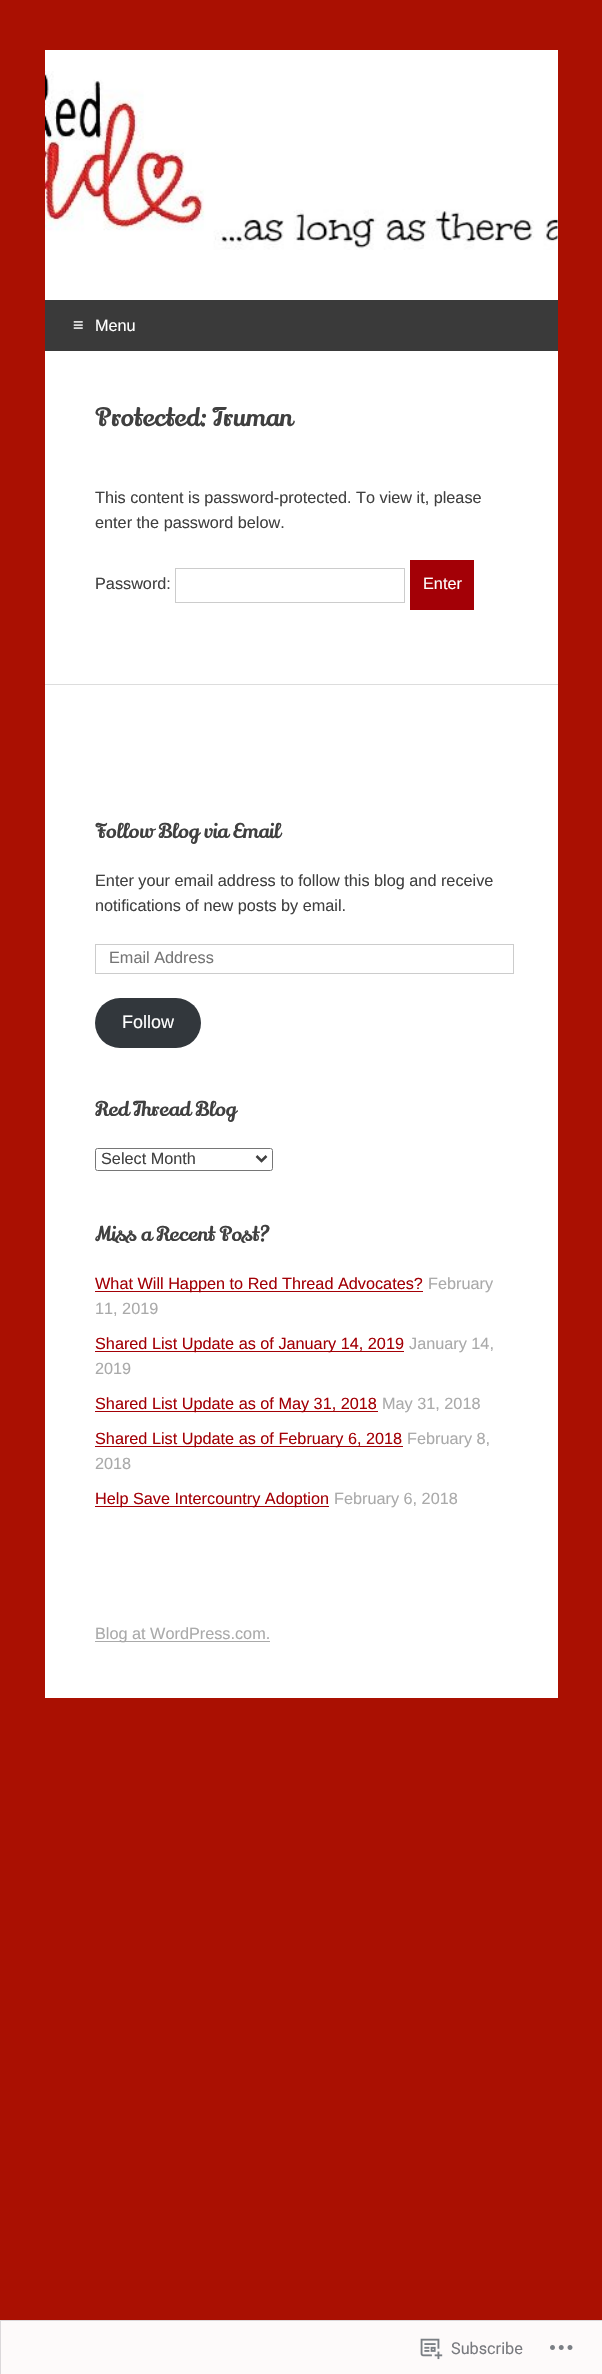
#include "include/core/SkBlurTypes.h"
#include "include/core/SkCanvas.h"
#include "include/core/SkData.h"
#include "include/core/SkFont.h"
#include "include/core/SkFontMgr.h"
#include "include/core/SkImage.h"
#include "include/core/SkMaskFilter.h"
#include "include/core/SkPaint.h"
#include "include/core/SkPathBuilder.h"
#include "include/core/SkTextBlob.h"
#include "include/effects/SkDashPathEffect.h"
#include "include/effects/SkGradientShader.h"
#include "include/utils/SkParsePath.h"

extern sk_sp<SkFontMgr> fontMgr;

void draw(SkCanvas* canvas) {
  SkPaint p;
  p.setAntiAlias(true);
  canvas->clear(SkColorSetRGB(170, 16, 2));
  p.setColor(SK_ColorWHITE);
  canvas->drawRect(SkRect::MakeLTRB(45, 50, 558, 1698), p);
  canvas->drawImageRect(SkImages::DeferredFromEncodedData(SkData::MakeFromFileName("images/1.png")), SkRect::MakeLTRB(45, 71, 558, 250), SkSamplingOptions());
  p.setColor(SkColorSetRGB(58, 58, 58));
  canvas->drawRect(SkRect::MakeLTRB(45, 300, 558, 351), p);
  p.setColor(SkColorSetRGB(221, 221, 221));
  canvas->drawRect(SkRect::MakeLTRB(45, 684, 558, 685), p);
  p.setStyle(SkPaint::kStroke_Style);
  p.setStrokeWidth(1);
  p.setColor(SkColorSetRGB(204, 204, 204));
  canvas->drawRect(SkRect::MakeLTRB(175.5f, 568.5f, 404.5f, 602.5f), p);
  p.setStyle(SkPaint::kFill_Style);
  p.setColor(SkColorSetRGB(163, 0, 6));
  canvas->drawRect(SkRect::MakeLTRB(410, 560, 474, 610), p);
  p.setStyle(SkPaint::kStroke_Style);
  p.setColor(SkColorSetRGB(204, 204, 204));
  canvas->drawRect(SkRect::MakeLTRB(95.5f, 944.5f, 513.5f, 973.5f), p);
  p.setStyle(SkPaint::kFill_Style);
  p.setColor(SkColorSetRGB(50, 55, 60));
  canvas->drawRoundRect(SkRect::MakeLTRB(95, 998, 201, 1048), 25, 25, p);
  p.setStyle(SkPaint::kStroke_Style);
  p.setColor(SkColorSetRGB(118, 118, 118));
  canvas->drawRoundRect(SkRect::MakeLTRB(95.5f, 1148.5f, 272.5f, 1170.5f), 2, 2, p);
  p.setStrokeWidth(2.5f);
  p.setColor(SkColorSetRGB(64, 64, 64));
  canvas->drawPath(SkPathBuilder().moveTo(256.5f, 1156).lineTo(261.5f, 1161).lineTo(266.5f, 1156).detach(), p);
  p.setStyle(SkPaint::kFill_Style);
  p.setColor(SkColorSetRGB(163, 0, 6));
  canvas->drawRect(SkRect::MakeLTRB(95, 1291, 423, 1292), p);
  canvas->drawRect(SkRect::MakeLTRB(95, 1351, 404, 1352), p);
  canvas->drawRect(SkRect::MakeLTRB(95, 1411, 378, 1412), p);
  canvas->drawRect(SkRect::MakeLTRB(95, 1446, 403, 1447), p);
  canvas->drawRect(SkRect::MakeLTRB(95, 1506, 329, 1507), p);
  p.setColor(SkColorSetRGB(170, 170, 170));
  canvas->drawRect(SkRect::MakeLTRB(95, 1641, 270, 1642), p);
  p.setColor(SkColorSetRGB(253, 250, 250));
  canvas->drawRect(SkRect::MakeLTRB(0.5f, 2320.5f, 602.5f, 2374.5f), p);
  p.setStyle(SkPaint::kStroke_Style);
  p.setStrokeWidth(1);
  p.setColor(SkColorSetRGB(219, 216, 218));
  canvas->drawRect(SkRect::MakeLTRB(0.5f, 2320.5f, 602.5f, 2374.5f), p);
  canvas->drawImageRect(SkImages::DeferredFromEncodedData(SkData::MakeFromFileName("images/2.png")), SkRect::MakeLTRB(420, 2338, 443, 2360), SkSamplingOptions());
  canvas->drawImageRect(SkImages::DeferredFromEncodedData(SkData::MakeFromFileName("images/3.png")), SkRect::MakeLTRB(550, 2345, 573, 2350), SkSamplingOptions());
  SkFont font1(fontMgr->matchFamilyStyle("Liberation Sans", SkFontStyle::Normal()), 18);
  font1.setSubpixel(true);
  p.setStyle(SkPaint::kFill_Style);
  p.setColor(SK_ColorWHITE);
  canvas->drawString("≡", 73, 331, font1, p);
  SkFont font2(fontMgr->matchFamilyStyle("Liberation Sans", SkFontStyle::Normal()), 16.25f);
  font2.setSubpixel(true);
  canvas->drawString("Menu", 95, 331, font2, p);
  SkFont font3(fontMgr->matchFamilyStyle("Lily Script One", SkFontStyle::Normal()), 25);
  font3.setSubpixel(true);
  p.setColor(SkColorSetRGB(64, 64, 64));
  canvas->drawString("Protected: Truman", 95, 426, font3, p);
  canvas->drawString("This content is password-protected. To view it, please", 95, 503, font2, p);
  canvas->drawString("enter the password below.", 95, 528, font2, p);
  canvas->drawString("Password:", 95, 589, font2, p);
  p.setColor(SK_ColorWHITE);
  canvas->drawString("Enter", 423, 589, font2, p);
  SkFont font4(fontMgr->matchFamilyStyle("Lily Script One", SkFontStyle::Normal()), 20);
  font4.setSubpixel(true);
  p.setColor(SkColorSetRGB(64, 64, 64));
  canvas->drawString("Follow Blog via Email", 95, 838, font4, p);
  canvas->drawString("Enter your email address to follow this blog and receive", 95, 886, font2, p);
  canvas->drawString("notifications of new posts by email.", 95, 911, font2, p);
  p.setColor(SkColorSetRGB(117, 117, 117));
  canvas->drawString("Email Address", 109, 963, font2, p);
  p.setColor(SK_ColorWHITE);
  canvas->drawString("Follow", 122, 1028, font1, p);
  p.setColor(SkColorSetRGB(64, 64, 64));
  canvas->drawString("Red Thread Blog", 95, 1116, font4, p);
  canvas->drawString("Select Month", 101, 1164, font2, p);
  canvas->drawString("Miss a Recent Post?", 95, 1241, font4, p);
  p.setColor(SkColorSetRGB(163, 0, 6));
  canvas->drawString("What Will Happen to Red Thread Advocates?", 95, 1289, font2, p);
  p.setColor(SkColorSetRGB(170, 170, 170));
  canvas->drawString("February", 428, 1289, font2, p);
  canvas->drawString("11, 2019", 95, 1314, font2, p);
  p.setColor(SkColorSetRGB(163, 0, 6));
  canvas->drawString("Shared List Update as of January 14, 2019", 95, 1349, font2, p);
  p.setColor(SkColorSetRGB(170, 170, 170));
  canvas->drawString("January 14,", 409, 1349, font2, p);
  canvas->drawString("2019", 95, 1374, font2, p);
  p.setColor(SkColorSetRGB(163, 0, 6));
  canvas->drawString("Shared List Update as of May 31, 2018", 95, 1409, font2, p);
  p.setColor(SkColorSetRGB(170, 170, 170));
  canvas->drawString("May 31, 2018", 382, 1409, font2, p);
  p.setColor(SkColorSetRGB(163, 0, 6));
  canvas->drawString("Shared List Update as of February 6, 2018", 95, 1444, font2, p);
  p.setColor(SkColorSetRGB(170, 170, 170));
  canvas->drawString("February 8,", 407, 1444, font2, p);
  canvas->drawString("2018", 95, 1469, font2, p);
  p.setColor(SkColorSetRGB(163, 0, 6));
  canvas->drawString("Help Save Intercountry Adoption", 95, 1504, font2, p);
  p.setColor(SkColorSetRGB(170, 170, 170));
  canvas->drawString("February 6, 2018", 334, 1504, font2, p);
  canvas->drawString("Blog at WordPress.com.", 95, 1639, font2, p);
  SkFont font5(fontMgr->matchFamilyStyle("Roboto", SkFontStyle::Normal()), 16.25f);
  font5.setSubpixel(true);
  p.setColor(SkColorSetRGB(121, 122, 127));
  canvas->drawString("Subscribe", 451, 2354, font5, p);
}
